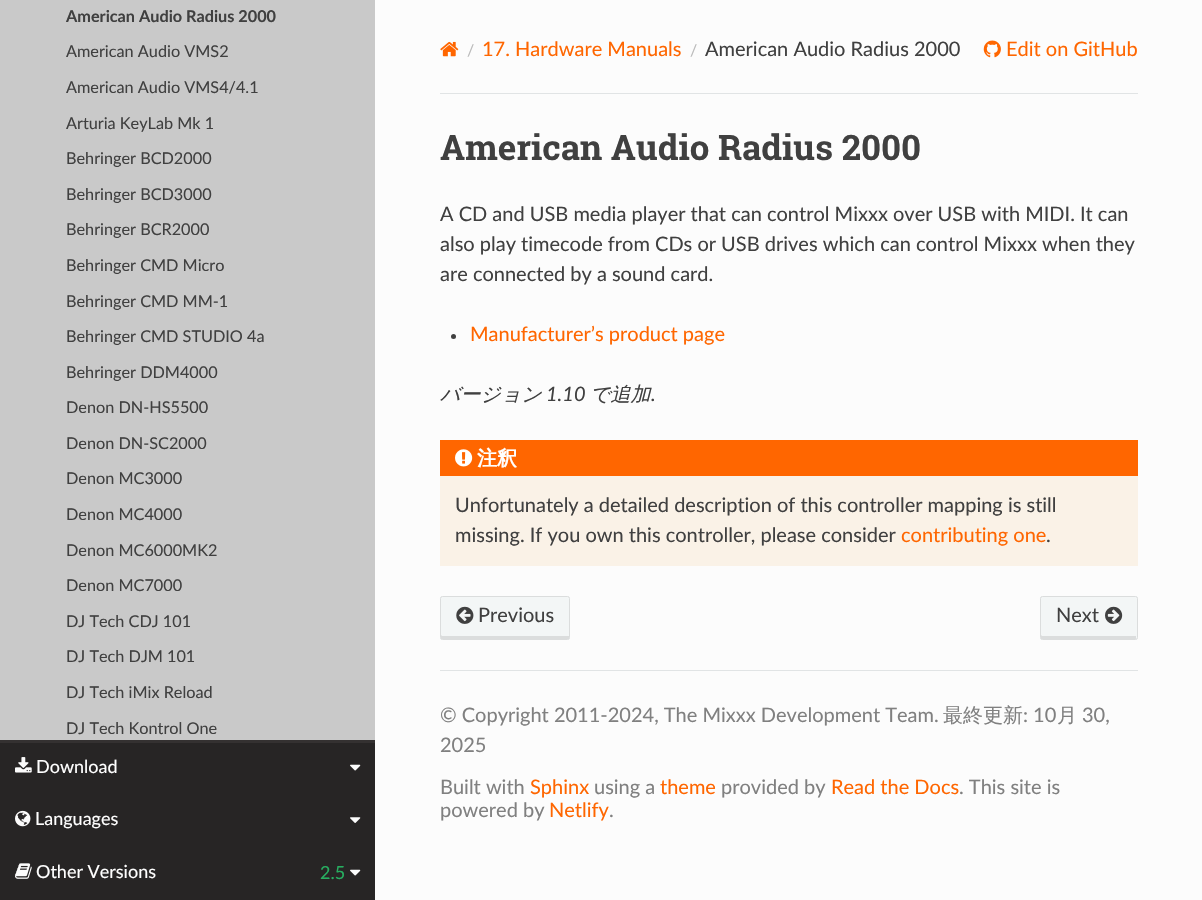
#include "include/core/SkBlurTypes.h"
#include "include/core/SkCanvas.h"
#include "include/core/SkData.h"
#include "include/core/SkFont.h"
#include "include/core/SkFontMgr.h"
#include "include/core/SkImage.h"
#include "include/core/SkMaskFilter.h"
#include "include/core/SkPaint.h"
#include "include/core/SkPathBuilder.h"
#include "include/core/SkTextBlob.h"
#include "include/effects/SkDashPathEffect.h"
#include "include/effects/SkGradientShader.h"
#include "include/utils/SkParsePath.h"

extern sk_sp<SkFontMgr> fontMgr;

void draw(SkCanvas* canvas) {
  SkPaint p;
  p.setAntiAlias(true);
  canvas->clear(SkColorSetRGB(252, 252, 252));
  p.setColor(SkColorSetRGB(52, 49, 49));
  canvas->drawRect(SkRect::MakeLTRB(0, 740, 375, 743), p);
  p.setColor(SkColorSetRGB(201, 201, 201));
  canvas->drawRect(SkRect::MakeLTRB(0, 0, 375, 740), p);
  canvas->drawImageRect(SkImages::DeferredFromEncodedData(SkData::MakeFromFileName("images/1.png")), SkRect::MakeLTRB(440, 41, 459, 57), SkSamplingOptions());
  canvas->drawImageRect(SkImages::DeferredFromEncodedData(SkData::MakeFromFileName("images/2.png")), SkRect::MakeLTRB(983, 40, 1001, 58), SkSamplingOptions());
  p.setColor(SkColorSetRGB(225, 228, 229));
  canvas->drawRect(SkRect::MakeLTRB(440, 93, 1138, 94), p);
  p.setColor(SkColorSetRGB(64, 64, 64));
  canvas->drawCircle(453.5f, 336.5f, 2.5f, p);
  p.setColor(SkColorSetRGB(250, 242, 231));
  canvas->drawRect(SkRect::MakeLTRB(440, 476, 1138, 566), p);
  p.setColor(SkColorSetRGB(255, 102, 0));
  canvas->drawRect(SkRect::MakeLTRB(440, 440, 1138, 476), p);
  canvas->drawImageRect(SkImages::DeferredFromEncodedData(SkData::MakeFromFileName("images/3.png")), SkRect::MakeLTRB(455, 449, 473, 467), SkSamplingOptions());
  p.setColor(SkColorSetRGB(243, 246, 246));
  canvas->drawRoundRect(SkRect::MakeLTRB(440, 596, 570, 640), 2.5f, 2.5f, p);
  p.setColor(SkColorSetRGB(219, 221, 221));
  canvas->drawPath(SkPathBuilder().moveTo(441, 635).lineTo(441, 638).cubicTo(441, 639, 441, 639, 442, 639).lineTo(568, 639).cubicTo(569, 639, 569, 639, 569, 638).lineTo(569, 635).lineTo(569, 636).lineTo(505, 636).lineTo(442, 636).close().detach(), p);
  p.setStyle(SkPaint::kStroke_Style);
  p.setStrokeWidth(1);
  canvas->drawRoundRect(SkRect::MakeLTRB(440.5f, 596.5f, 569.5f, 639.5f), 2, 2, p);
  canvas->drawImageRect(SkImages::DeferredFromEncodedData(SkData::MakeFromFileName("images/4.png")), SkRect::MakeLTRB(456, 606, 474, 624), SkSamplingOptions());
  p.setStyle(SkPaint::kFill_Style);
  p.setColor(SkColorSetRGB(243, 246, 246));
  canvas->drawRoundRect(SkRect::MakeLTRB(1040, 596, 1138, 640), 2.5f, 2.5f, p);
  p.setColor(SkColorSetRGB(219, 221, 221));
  canvas->drawPath(SkPathBuilder().moveTo(1041, 635).lineTo(1041, 638).cubicTo(1041, 639, 1041, 639, 1042, 639).lineTo(1135, 639).cubicTo(1136, 639, 1136, 639, 1136, 638).lineTo(1136, 635).cubicTo(1136, 636, 1136, 636, 1135, 636).lineTo(1042, 636).close().detach(), p);
  p.setStyle(SkPaint::kStroke_Style);
  canvas->drawRoundRect(SkRect::MakeLTRB(1040.5f, 596.5f, 1137.5f, 639.5f), 2, 2, p);
  canvas->drawImageRect(SkImages::DeferredFromEncodedData(SkData::MakeFromFileName("images/5.png")), SkRect::MakeLTRB(1105, 606, 1123, 624), SkSamplingOptions());
  p.setStyle(SkPaint::kFill_Style);
  p.setColor(SkColorSetRGB(225, 228, 229));
  canvas->drawRect(SkRect::MakeLTRB(440, 670, 1138, 671), p);
  p.setColor(SkColorSetRGB(39, 37, 37));
  canvas->drawRect(SkRect::MakeLTRB(0, 743, 375, 900), p);
  canvas->drawImageRect(SkImages::DeferredFromEncodedData(SkData::MakeFromFileName("images/6.png")), SkRect::MakeLTRB(15, 757, 32, 773), SkSamplingOptions());
  canvas->drawImageRect(SkImages::DeferredFromEncodedData(SkData::MakeFromFileName("images/7.png")), SkRect::MakeLTRB(350, 764, 361, 771), SkSamplingOptions());
  canvas->drawImageRect(SkImages::DeferredFromEncodedData(SkData::MakeFromFileName("images/8.png")), SkRect::MakeLTRB(15, 810, 31, 827), SkSamplingOptions());
  canvas->drawImageRect(SkImages::DeferredFromEncodedData(SkData::MakeFromFileName("images/9.png")), SkRect::MakeLTRB(350, 817, 361, 823), SkSamplingOptions());
  canvas->drawImageRect(SkImages::DeferredFromEncodedData(SkData::MakeFromFileName("images/10.png")), SkRect::MakeLTRB(15, 863, 32, 879), SkSamplingOptions());
  canvas->drawImageRect(SkImages::DeferredFromEncodedData(SkData::MakeFromFileName("images/7.png")), SkRect::MakeLTRB(350, 869, 361, 876), SkSamplingOptions());
  SkFont font1(fontMgr->matchFamilyStyle("Lato", SkFontStyle::Bold()), 16.25f);
  font1.setSubpixel(true);
  p.setColor(SkColorSetRGB(64, 64, 64));
  canvas->drawString("American Audio Radius 2000", 66, 22, font1, p);
  SkFont font2(fontMgr->matchFamilyStyle("Lato", SkFontStyle::Normal()), 16.25f);
  font2.setSubpixel(true);
  canvas->drawString("American Audio VMS2", 66, 57, font2, p);
  canvas->drawString("American Audio VMS4/4.1", 66, 93, font2, p);
  canvas->drawString("Arturia KeyLab Mk 1", 66, 129, font2, p);
  canvas->drawString("Behringer BCD2000", 66, 164, font2, p);
  canvas->drawString("Behringer BCD3000", 66, 200, font2, p);
  canvas->drawString("Behringer BCR2000", 66, 235, font2, p);
  canvas->drawString("Behringer CMD Micro", 66, 271, font2, p);
  canvas->drawString("Behringer CMD MM-1", 66, 307, font2, p);
  canvas->drawString("Behringer CMD STUDIO 4a", 66, 342, font2, p);
  canvas->drawString("Behringer DDM4000", 66, 378, font2, p);
  canvas->drawString("Denon DN-HS5500", 66, 413, font2, p);
  canvas->drawString("Denon DN-SC2000", 66, 449, font2, p);
  canvas->drawString("Denon MC3000", 66, 484, font2, p);
  canvas->drawString("Denon MC4000", 66, 520, font2, p);
  canvas->drawString("Denon MC6000MK2", 66, 556, font2, p);
  canvas->drawString("Denon MC7000", 66, 591, font2, p);
  canvas->drawString("DJ Tech CDJ 101", 66, 627, font2, p);
  canvas->drawString("DJ Tech DJM 101", 66, 662, font2, p);
  canvas->drawString("DJ Tech iMix Reload", 66, 698, font2, p);
  canvas->drawString("DJ Tech Kontrol One", 66, 734, font2, p);
  SkFont font3(fontMgr->matchFamilyStyle("Lato", SkFontStyle::Normal()), 16);
  font3.setSubpixel(true);
  p.setColor(SkColorSetRGB(187, 187, 187));
  canvas->drawString("/", 467, 56, font3, p);
  SkFont font4(fontMgr->matchFamilyStyle("Lato", SkFontStyle::Normal()), 20);
  font4.setSubpixel(true);
  p.setColor(SkColorSetRGB(255, 102, 0));
  canvas->drawString("17. Hardware Manuals", 482, 56, font4, p);
  p.setColor(SkColorSetRGB(187, 187, 187));
  canvas->drawString("/", 690, 56, font3, p);
  p.setColor(SkColorSetRGB(64, 64, 64));
  canvas->drawString("American Audio Radius 2000", 705, 56, font4, p);
  p.setColor(SkColorSetRGB(255, 102, 0));
  canvas->drawString("Edit on GitHub", 1006, 56, font4, p);
  SkFont font5(fontMgr->matchFamilyStyle("Roboto Slab", SkFontStyle::Bold()), 35);
  font5.setSubpixel(true);
  p.setColor(SkColorSetRGB(64, 64, 64));
  canvas->drawString("American Audio Radius 2000", 440, 160, font5, p);
  canvas->drawString("A CD and USB media player that can control Mixxx over USB with MIDI. It can", 440, 221, font4, p);
  canvas->drawString("also play timecode from CDs or USB drives which can control Mixxx when they", 440, 251, font4, p);
  canvas->drawString("are connected by a sound card.", 440, 281, font4, p);
  p.setColor(SkColorSetRGB(255, 102, 0));
  canvas->drawString("Manufacturer’s product page", 470, 341, font4, p);
  SkFont font6(fontMgr->matchFamilyStyle("WenQuanYi Zen Hei", SkFontStyle(500, SkFontStyle::kNormal_Width, SkFontStyle::kItalic_Slant)), 20);
  font6.setSubpixel(true);
  p.setColor(SkColorSetRGB(64, 64, 64));
  canvas->drawString("バージョン", 440, 401, font6, p);
  SkFont font7(fontMgr->matchFamilyStyle("Lato", SkFontStyle::Italic()), 20);
  font7.setSubpixel(true);
  canvas->drawString("1.10", 546, 401, font7, p);
  canvas->drawString("で追加", 590, 401, font6, p);
  canvas->drawString(".", 651, 401, font7, p);
  SkFont font8(fontMgr->matchFamilyStyle("WenQuanYi Zen Hei", SkFontStyle::Bold()), 20);
  font8.setSubpixel(true);
  p.setColor(SK_ColorWHITE);
  canvas->drawString("注釈", 477, 465, font8, p);
  p.setColor(SkColorSetRGB(64, 64, 64));
  canvas->drawString("Unfortunately a detailed description of this controller mapping is still", 455, 512, font4, p);
  canvas->drawString("missing. If you own this controller, please consider", 455, 542, font4, p);
  p.setColor(SkColorSetRGB(255, 102, 0));
  canvas->drawString("contributing one", 901, 542, font4, p);
  p.setColor(SkColorSetRGB(64, 64, 64));
  canvas->drawString(".", 1046, 542, font4, p);
  canvas->drawString("Previous", 478, 622, font4, p);
  canvas->drawString("Next", 1056, 622, font4, p);
  p.setColor(SkColorSetRGB(128, 128, 128));
  canvas->drawString("© Copyright 2011-2024, The Mixxx Development Team.", 440, 722, font4, p);
  SkFont font9(fontMgr->matchFamilyStyle("WenQuanYi Zen Hei", SkFontStyle(500, SkFontStyle::kNormal_Width, SkFontStyle::kUpright_Slant)), 20);
  font9.setSubpixel(true);
  canvas->drawString("最終更新", 943, 722, font9, p);
  canvas->drawString(": 10", 1023, 722, font4, p);
  canvas->drawString("月", 1057, 722, font9, p);
  canvas->drawString("30,", 1082, 722, font4, p);
  canvas->drawString("2025", 440, 752, font4, p);
  canvas->drawString("Built with", 440, 794, font4, p);
  p.setColor(SkColorSetRGB(255, 102, 0));
  canvas->drawString("Sphinx", 530, 794, font4, p);
  p.setColor(SkColorSetRGB(128, 128, 128));
  canvas->drawString("using a", 594, 794, font4, p);
  p.setColor(SkColorSetRGB(255, 102, 0));
  canvas->drawString("theme", 660, 794, font4, p);
  p.setColor(SkColorSetRGB(128, 128, 128));
  canvas->drawString("provided by", 721, 794, font4, p);
  p.setColor(SkColorSetRGB(255, 102, 0));
  canvas->drawString("Read the Docs", 831, 794, font4, p);
  p.setColor(SkColorSetRGB(128, 128, 128));
  canvas->drawString(". This site is", 959, 794, font4, p);
  canvas->drawString("powered by", 440, 817, font4, p);
  p.setColor(SkColorSetRGB(255, 102, 0));
  canvas->drawString("Netlify", 549, 817, font4, p);
  p.setColor(SkColorSetRGB(128, 128, 128));
  canvas->drawString(".", 609, 817, font4, p);
  SkFont font10(fontMgr->matchFamilyStyle("Lato", SkFontStyle::Normal()), 18);
  font10.setSubpixel(true);
  p.setColor(SK_ColorWHITE);
  canvas->drawString("Download", 36, 773, font10, p);
  canvas->drawString("Languages", 35, 825, font10, p);
  canvas->drawString("Other Versions", 36, 878, font10, p);
  p.setColor(SkColorSetRGB(39, 174, 96));
  canvas->drawString("2.5", 320, 879, font10, p);
}
